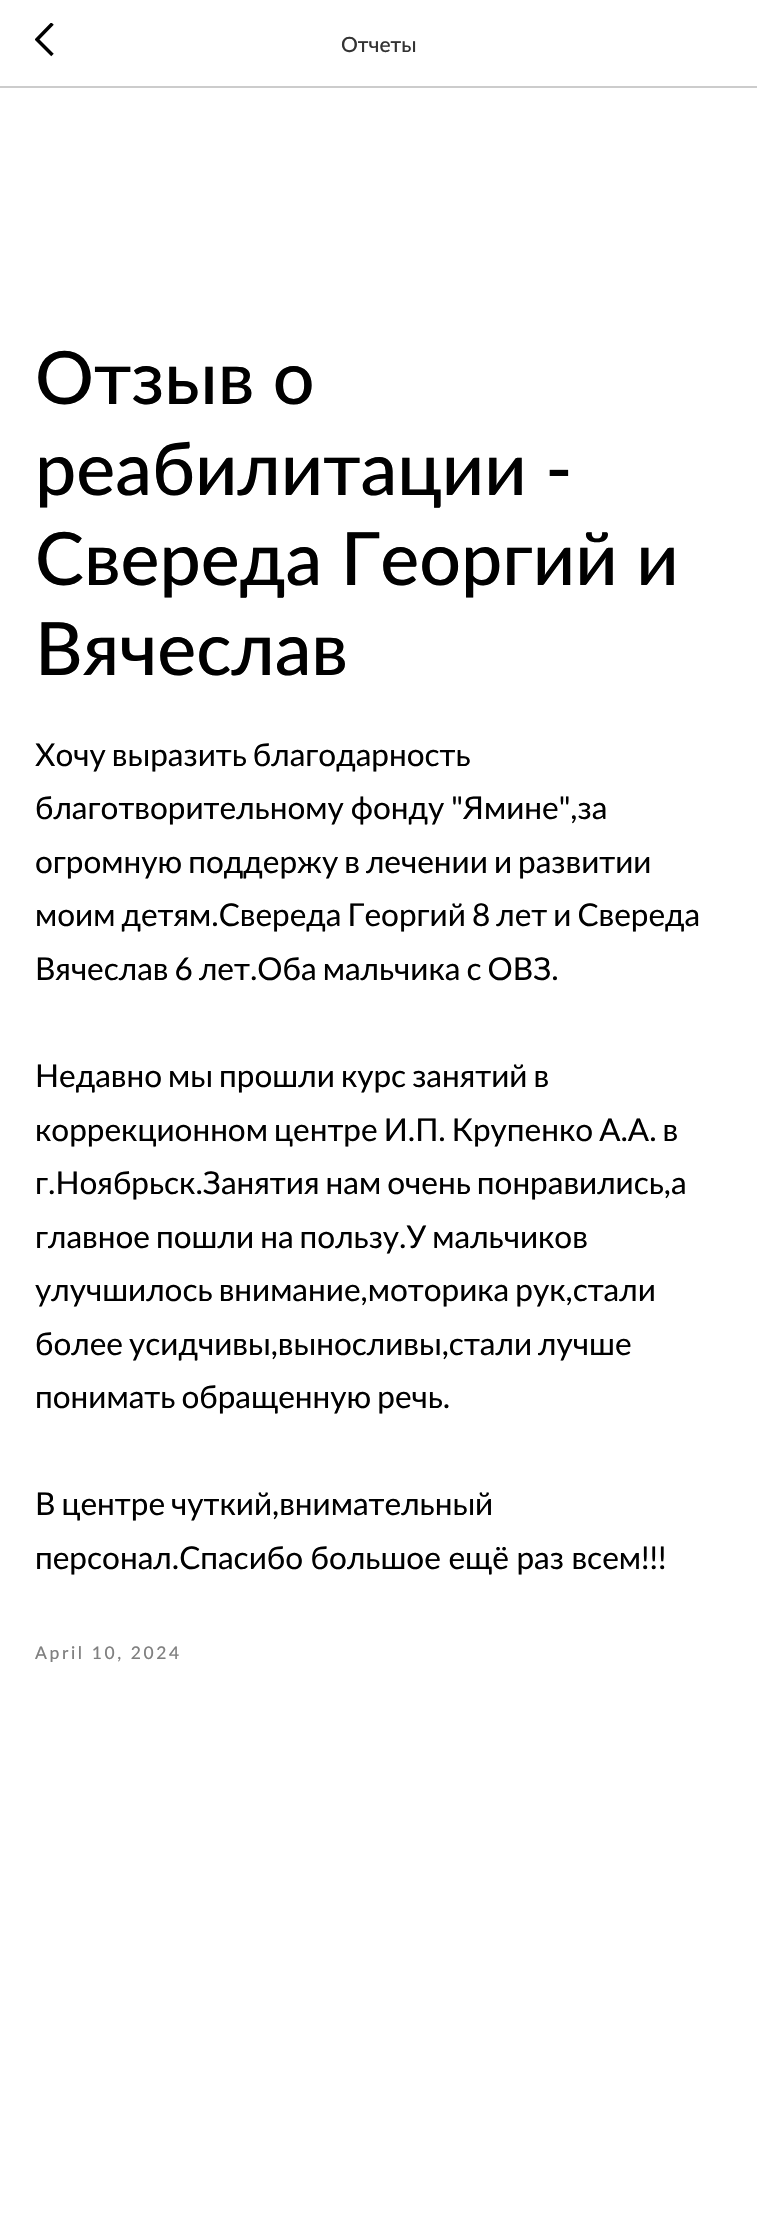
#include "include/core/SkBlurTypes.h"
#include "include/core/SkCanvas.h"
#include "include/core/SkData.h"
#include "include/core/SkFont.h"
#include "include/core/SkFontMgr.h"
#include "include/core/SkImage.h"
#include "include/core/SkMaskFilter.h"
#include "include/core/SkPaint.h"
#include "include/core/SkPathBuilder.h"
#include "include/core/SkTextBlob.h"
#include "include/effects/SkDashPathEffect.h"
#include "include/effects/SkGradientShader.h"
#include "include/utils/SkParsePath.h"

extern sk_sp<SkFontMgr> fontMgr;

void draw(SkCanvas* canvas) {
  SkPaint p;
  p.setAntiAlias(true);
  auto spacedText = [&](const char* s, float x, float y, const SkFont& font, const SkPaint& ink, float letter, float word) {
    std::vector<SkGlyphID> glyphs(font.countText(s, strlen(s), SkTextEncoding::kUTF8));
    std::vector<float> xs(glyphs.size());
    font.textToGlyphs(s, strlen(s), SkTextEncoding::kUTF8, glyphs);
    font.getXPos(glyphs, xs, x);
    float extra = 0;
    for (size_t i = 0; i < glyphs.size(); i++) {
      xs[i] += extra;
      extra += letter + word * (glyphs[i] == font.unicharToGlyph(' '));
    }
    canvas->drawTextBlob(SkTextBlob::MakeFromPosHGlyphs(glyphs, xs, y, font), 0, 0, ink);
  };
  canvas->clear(SK_ColorWHITE);
  p.setColor(SkColorSetRGB(204, 204, 204));
  canvas->drawRect(SkRect::MakeLTRB(0, 86, 757, 88), p);
  canvas->save();
  canvas->clipRect(SkRect::MakeLTRB(35, 23, 54, 58));
  p.setStyle(SkPaint::kStroke_Style);
  p.setStrokeWidth(3.5f);
  p.setColor(SK_ColorBLACK);
  canvas->drawPath(SkPathBuilder().moveTo(52.5f, 55).lineTo(37, 39.5f).lineTo(52.5f, 23.5f).detach(), p);
  canvas->restore();
  SkFont font1(fontMgr->matchFamilyStyle("Lato", SkFontStyle(500, SkFontStyle::kNormal_Width, SkFontStyle::kUpright_Slant)), 21);
  font1.setSubpixel(true);
  p.setStyle(SkPaint::kFill_Style);
  p.setColor(SkColorSetRGB(51, 51, 51));
  canvas->drawString("Отчеты", 341, 52, font1, p);
  SkFont font2(fontMgr->matchFamilyStyle("Lato", SkFontStyle(500, SkFontStyle::kNormal_Width, SkFontStyle::kUpright_Slant)), 73.5f);
  font2.setSubpixel(true);
  p.setColor(SK_ColorBLACK);
  canvas->drawString("Отзыв о", 35, 404, font2, p);
  canvas->drawString("реабилитации -", 35, 495, font2, p);
  canvas->drawString("Свереда Георгий и", 35, 585, font2, p);
  canvas->drawString("Вячеслав", 35, 675, font2, p);
  SkFont font3(fontMgr->matchFamilyStyle("Lato", SkFontStyle::Normal()), 31.5f);
  font3.setSubpixel(true);
  spacedText("Хочу выразить благодарность", 35, 766, font3, p, 0, -2);
  spacedText("благотворительному фонду \"Ямине\",за", 35, 819, font3, p, 0, -1);
  spacedText("огромную поддержу в лечении и развитии", 35, 873, font3, p, 0, -2);
  spacedText("моим детям.Свереда Георгий 8 лет и Свереда", 35, 926, font3, p, 0, -2);
  spacedText("Вячеслав 6 лет.Оба мальчика с ОВЗ.", 35, 980, font3, p, 0, -2);
  spacedText("Недавно мы прошли курс занятий в", 35, 1087, font3, p, 0, -2);
  spacedText("коррекционном центре И.П. Крупенко А.А. в", 35, 1141, font3, p, 0, -2);
  spacedText("г.Ноябрьск.Занятия нам очень понравились,а", 35, 1194, font3, p, 0, -2);
  spacedText("главное пошли на пользу.У мальчиков", 35, 1248, font3, p, 0, -2);
  spacedText("улучшилось внимание,моторика рук,стали", 35, 1301, font3, p, 0, -2);
  spacedText("более усидчивы,выносливы,стали лучше", 35, 1355, font3, p, 0, -2);
  spacedText("понимать обращенную речь.", 35, 1408, font3, p, 0, -2);
  spacedText("В центре чуткий,внимательный", 35, 1515, font3, p, 0, -2);
  spacedText("персонал.Спасибо большое ещё раз всем!!!", 35, 1569, font3, p, 0, -0.5f);
  SkFont font4(fontMgr->matchFamilyStyle("Lato", SkFontStyle(500, SkFontStyle::kNormal_Width, SkFontStyle::kUpright_Slant)), 17.5f);
  font4.setSubpixel(true);
  p.setColor(SkColorSetRGB(128, 128, 128));
  spacedText("April 10, 2024", 35, 1659, font4, p, 2.6f, 0);
}
